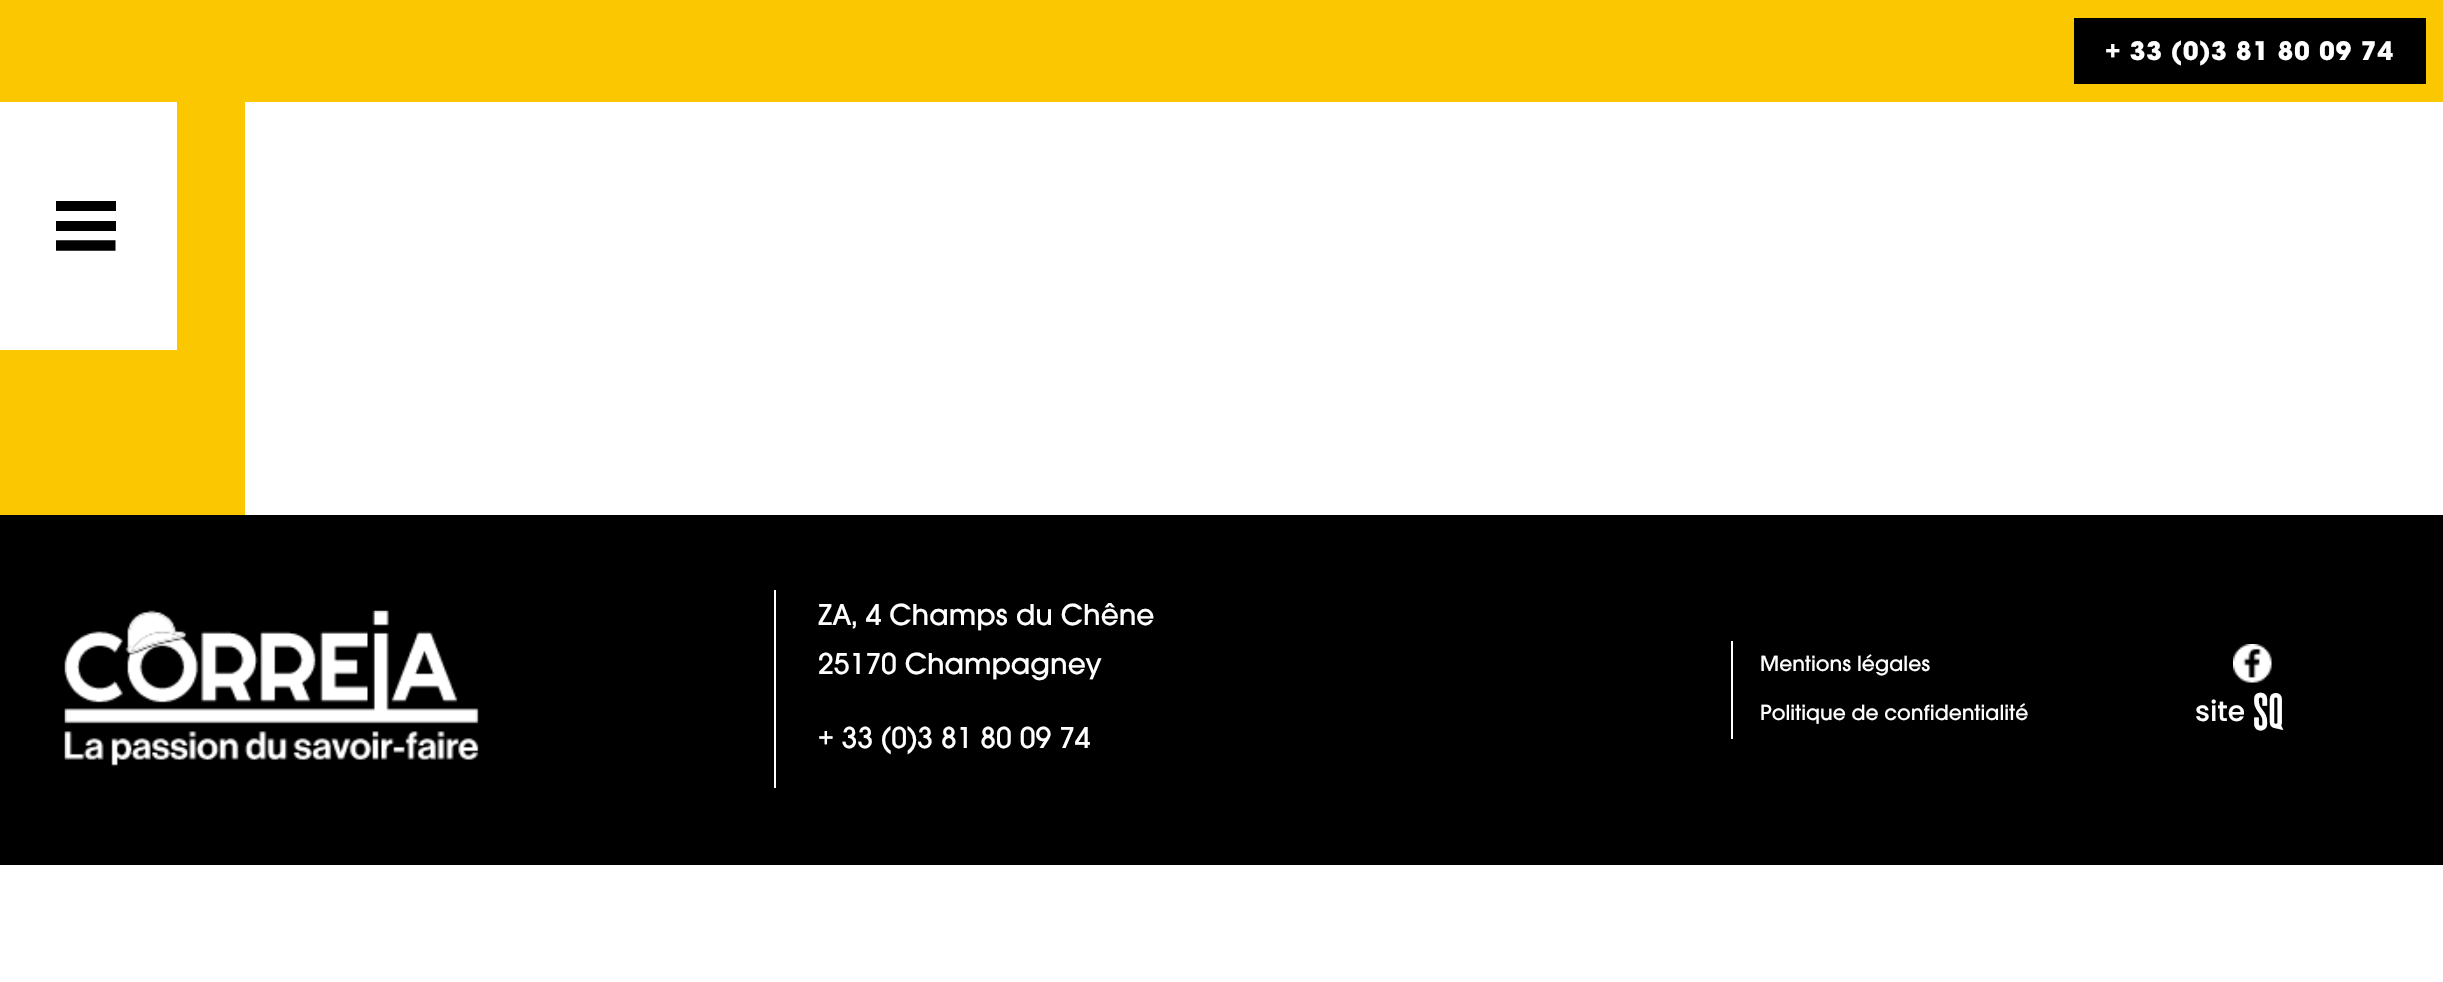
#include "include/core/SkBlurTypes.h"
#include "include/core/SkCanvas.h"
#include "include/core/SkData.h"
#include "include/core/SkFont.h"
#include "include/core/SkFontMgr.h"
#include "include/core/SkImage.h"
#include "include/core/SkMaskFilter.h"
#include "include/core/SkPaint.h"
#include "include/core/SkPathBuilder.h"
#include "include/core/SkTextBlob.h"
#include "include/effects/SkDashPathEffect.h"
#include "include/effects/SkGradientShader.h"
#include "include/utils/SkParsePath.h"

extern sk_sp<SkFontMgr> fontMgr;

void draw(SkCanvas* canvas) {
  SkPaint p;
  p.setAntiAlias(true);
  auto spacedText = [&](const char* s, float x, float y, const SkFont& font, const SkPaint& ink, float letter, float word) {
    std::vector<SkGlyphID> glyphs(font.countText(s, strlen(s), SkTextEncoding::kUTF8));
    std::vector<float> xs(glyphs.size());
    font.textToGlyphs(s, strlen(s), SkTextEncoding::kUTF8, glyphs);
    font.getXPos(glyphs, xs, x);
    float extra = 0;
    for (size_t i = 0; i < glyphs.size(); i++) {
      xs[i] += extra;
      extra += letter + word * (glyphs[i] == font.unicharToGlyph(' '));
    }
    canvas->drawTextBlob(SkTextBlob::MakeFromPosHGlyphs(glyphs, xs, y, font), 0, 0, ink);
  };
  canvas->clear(SK_ColorWHITE);
  p.setColor(SkColorSetRGB(250, 199, 0));
  canvas->drawRect(SkRect::MakeLTRB(0, 0, 245, 515), p);
  canvas->drawRect(SkRect::MakeLTRB(245, 0, 2443, 102), p);
  p.setColor(SK_ColorBLACK);
  canvas->drawRect(SkRect::MakeLTRB(2074, 18, 2426, 84), p);
  p.setColor(SK_ColorWHITE);
  canvas->drawRect(SkRect::MakeLTRB(0, 102, 177, 350), p);
  p.setColor(SK_ColorBLACK);
  canvas->drawRect(SkRect::MakeLTRB(56, 221, 116, 231), p);
  canvas->drawRect(SkRect::MakeLTRB(56, 201, 116, 211), p);
  p.setStyle(SkPaint::kStroke_Style);
  p.setStrokeWidth(10.4f);
  p.setStrokeJoin(SkPaint::kRound_Join);
  canvas->drawPath(SkPathBuilder().moveTo(56, 245.5f).lineTo(115.5f, 245.5f).detach(), p);
  p.setStyle(SkPaint::kFill_Style);
  canvas->drawRect(SkRect::MakeLTRB(0, 515, 2443, 865), p);
  canvas->drawImageRect(SkImages::DeferredFromEncodedData(SkData::MakeFromFileName("images/1.png")), SkRect::MakeLTRB(64, 610, 479, 767), SkSamplingOptions());
  p.setColor(SK_ColorWHITE);
  canvas->drawRect(SkRect::MakeLTRB(774, 590, 776, 788), p);
  canvas->drawRect(SkRect::MakeLTRB(1731, 641, 1733, 739), p);
  canvas->drawImageRect(SkImages::DeferredFromEncodedData(SkData::MakeFromFileName("images/2.png")), SkRect::MakeLTRB(2233, 644, 2272, 683), SkSamplingOptions());
  SkFont font1(fontMgr->matchFamilyStyle("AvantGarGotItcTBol", SkFontStyle::Bold()), 28);
  font1.setSubpixel(true);
  spacedText("+ 33 (0)3 81 80 09 74", 2105, 60, font1, p, 1.25f, 0);
  SkFont font2(fontMgr->matchFamilyStyle("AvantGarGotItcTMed", SkFontStyle(500, SkFontStyle::kNormal_Width, SkFontStyle::kUpright_Slant)), 31.5f);
  font2.setSubpixel(true);
  canvas->drawString("ZA, 4 Champs du Chêne", 818, 625, font2, p);
  canvas->drawString("25170 Champagney", 818, 674, font2, p);
  canvas->drawString("+ 33 (0)3 81 80 09 74", 818, 748, font2, p);
  SkFont font3(fontMgr->matchFamilyStyle("AvantGarGotItcTMed", SkFontStyle(500, SkFontStyle::kNormal_Width, SkFontStyle::kUpright_Slant)), 22.75f);
  font3.setSubpixel(true);
  canvas->drawString("Mentions légales", 1760, 671, font3, p);
  canvas->drawString("Politique de confidentialité", 1760, 720, font3, p);
  SkFont font4(fontMgr->matchFamilyStyle("Poppins", SkFontStyle(500, SkFontStyle::kNormal_Width, SkFontStyle::kUpright_Slant)), 28);
  font4.setSubpixel(true);
  canvas->drawString("site", 2195, 721, font4, p);
  SkFont font5(fontMgr->matchFamilyStyle("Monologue", SkFontStyle::Normal()), 46);
  font5.setSubpixel(true);
  spacedText("S", 2253, 730, font5, p, -8, 0);
  spacedText("q", 2268, 730, font5, p, -8, 0);
}
